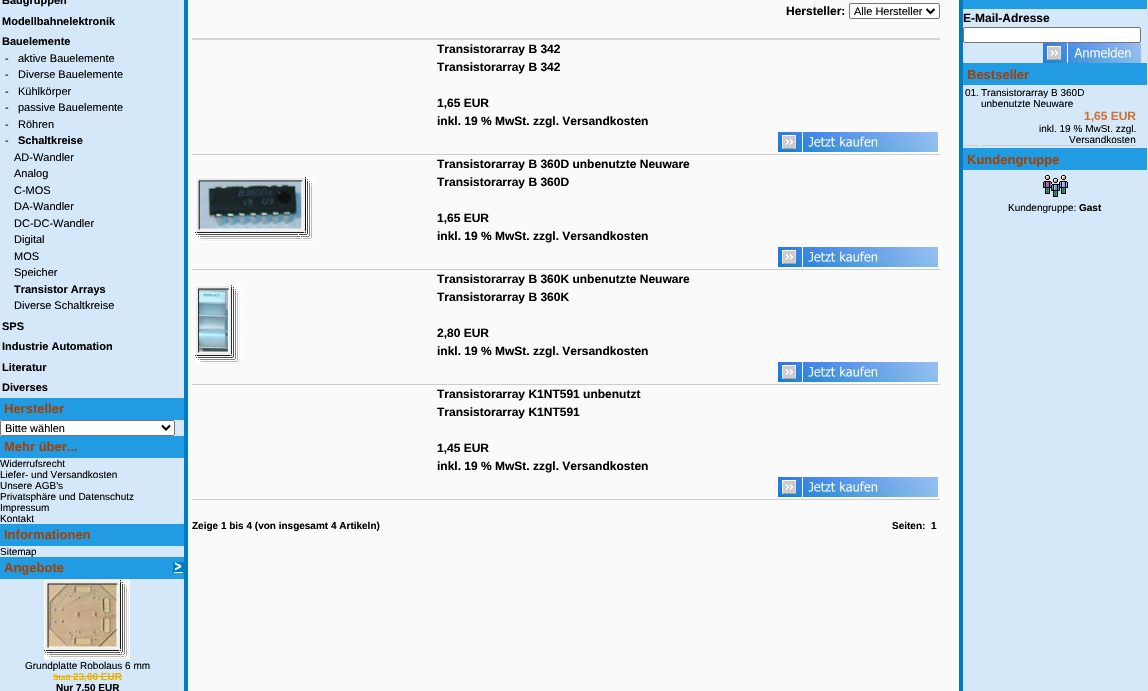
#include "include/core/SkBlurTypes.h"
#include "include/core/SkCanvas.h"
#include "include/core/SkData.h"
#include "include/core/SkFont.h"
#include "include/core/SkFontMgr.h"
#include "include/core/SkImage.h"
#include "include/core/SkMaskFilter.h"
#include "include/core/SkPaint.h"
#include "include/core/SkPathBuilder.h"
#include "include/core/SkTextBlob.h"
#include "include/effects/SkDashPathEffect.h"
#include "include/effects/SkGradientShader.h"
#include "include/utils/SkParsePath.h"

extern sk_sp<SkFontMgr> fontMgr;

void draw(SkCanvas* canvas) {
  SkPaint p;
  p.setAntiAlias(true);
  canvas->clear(SkColorSetRGB(250, 250, 250));
  p.setColor(SkColorSetRGB(213, 232, 250));
  canvas->drawRect(SkRect::MakeLTRB(0, 0, 184, 691), p);
  p.setColor(SkColorSetRGB(1, 124, 194));
  canvas->drawRect(SkRect::MakeLTRB(184, 0, 188, 691), p);
  p.setColor(SkColorSetRGB(33, 156, 226));
  canvas->drawRect(SkRect::MakeLTRB(0, 398, 184, 420), p);
  p.setColor(SK_ColorWHITE);
  canvas->drawRoundRect(SkRect::MakeLTRB(0.5f, 420.5f, 174.5f, 435.5f), 1.5f, 1.5f, p);
  p.setStyle(SkPaint::kStroke_Style);
  p.setStrokeWidth(1);
  p.setColor(SkColorSetRGB(118, 118, 118));
  canvas->drawRoundRect(SkRect::MakeLTRB(0.5f, 420.5f, 174.5f, 435.5f), 1.5f, 1.5f, p);
  p.setStrokeWidth(2);
  p.setColor(SK_ColorBLACK);
  canvas->drawPath(SkPathBuilder().moveTo(162, 425.5f).lineTo(166, 429.5f).lineTo(170, 425.5f).detach(), p);
  p.setStyle(SkPaint::kFill_Style);
  p.setColor(SkColorSetRGB(33, 156, 226));
  canvas->drawRect(SkRect::MakeLTRB(0, 436, 184, 458), p);
  canvas->drawRect(SkRect::MakeLTRB(0, 524, 184, 546), p);
  canvas->drawRect(SkRect::MakeLTRB(0, 557, 184, 579), p);
  canvas->drawImageRect(SkImages::DeferredFromEncodedData(SkData::MakeFromFileName("images/1.png")), SkRect::MakeLTRB(173, 562, 184, 573), SkSamplingOptions());
  canvas->drawImageRect(SkImages::DeferredFromEncodedData(SkData::MakeFromFileName("images/2.png")), SkRect::MakeLTRB(44, 580, 130, 660), SkSamplingOptions());
  p.setColor(SkColorSetRGB(235, 176, 0));
  canvas->drawRect(SkRect::MakeLTRB(53, 676, 73, 677), p);
  canvas->drawRect(SkRect::MakeLTRB(73, 676, 122, 677), p);
  p.setColor(SK_ColorWHITE);
  canvas->drawRoundRect(SkRect::MakeLTRB(849.5f, 3.5f, 939.5f, 18.5f), 1.5f, 1.5f, p);
  p.setStyle(SkPaint::kStroke_Style);
  p.setStrokeWidth(1);
  p.setColor(SkColorSetRGB(118, 118, 118));
  canvas->drawRoundRect(SkRect::MakeLTRB(849.5f, 3.5f, 939.5f, 18.5f), 1.5f, 1.5f, p);
  p.setStrokeWidth(2);
  p.setColor(SK_ColorBLACK);
  canvas->drawPath(SkPathBuilder().moveTo(926.5f, 9).lineTo(930.5f, 13).lineTo(934.5f, 9).detach(), p);
  p.setStyle(SkPaint::kFill_Style);
  p.setColor(SkColorSetRGB(212, 212, 212));
  canvas->drawRect(SkRect::MakeLTRB(192, 38, 940, 40), p);
  p.setColor(SkColorSetRGB(204, 204, 204));
  canvas->drawRect(SkRect::MakeLTRB(192, 154, 940, 155), p);
  canvas->drawImageRect(SkImages::DeferredFromEncodedData(SkData::MakeFromFileName("images/3.png")), SkRect::MakeLTRB(778, 132, 938, 152), SkSamplingOptions());
  canvas->drawRect(SkRect::MakeLTRB(192, 269, 940, 270), p);
  canvas->drawImageRect(SkImages::DeferredFromEncodedData(SkData::MakeFromFileName("images/4.png")), SkRect::MakeLTRB(195, 177, 315, 242), SkSamplingOptions());
  canvas->drawImageRect(SkImages::DeferredFromEncodedData(SkData::MakeFromFileName("images/3.png")), SkRect::MakeLTRB(778, 247, 938, 267), SkSamplingOptions());
  canvas->drawRect(SkRect::MakeLTRB(192, 384, 940, 385), p);
  canvas->drawImageRect(SkImages::DeferredFromEncodedData(SkData::MakeFromFileName("images/5.png")), SkRect::MakeLTRB(195, 285, 241, 365), SkSamplingOptions());
  canvas->drawImageRect(SkImages::DeferredFromEncodedData(SkData::MakeFromFileName("images/3.png")), SkRect::MakeLTRB(778, 362, 938, 382), SkSamplingOptions());
  canvas->drawRect(SkRect::MakeLTRB(192, 499, 940, 500), p);
  canvas->drawImageRect(SkImages::DeferredFromEncodedData(SkData::MakeFromFileName("images/3.png")), SkRect::MakeLTRB(778, 477, 938, 497), SkSamplingOptions());
  p.setColor(SkColorSetRGB(213, 232, 250));
  canvas->drawRect(SkRect::MakeLTRB(963, 0, 1148, 691), p);
  p.setColor(SkColorSetRGB(1, 124, 194));
  canvas->drawRect(SkRect::MakeLTRB(959, 0, 963, 691), p);
  p.setColor(SkColorSetRGB(33, 156, 226));
  canvas->drawRect(SkRect::MakeLTRB(963, 0, 1147, 9), p);
  p.setColor(SK_ColorWHITE);
  canvas->drawRoundRect(SkRect::MakeLTRB(963.5f, 27.5f, 1140.5f, 42.5f), 1.5f, 1.5f, p);
  p.setStyle(SkPaint::kStroke_Style);
  p.setStrokeWidth(1);
  p.setColor(SkColorSetRGB(118, 118, 118));
  canvas->drawRoundRect(SkRect::MakeLTRB(963.5f, 27.5f, 1140.5f, 42.5f), 1.5f, 1.5f, p);
  canvas->drawImageRect(SkImages::DeferredFromEncodedData(SkData::MakeFromFileName("images/6.png")), SkRect::MakeLTRB(1043, 43, 1141, 63), SkSamplingOptions());
  p.setStyle(SkPaint::kFill_Style);
  p.setColor(SkColorSetRGB(33, 156, 226));
  canvas->drawRect(SkRect::MakeLTRB(963, 63, 1147, 85), p);
  p.setColor(SkColorSetRGB(204, 204, 204));
  canvas->drawRect(SkRect::MakeLTRB(965, 145, 979, 146), p);
  canvas->drawRect(SkRect::MakeLTRB(981, 145, 1136, 146), p);
  p.setColor(SkColorSetRGB(33, 156, 226));
  canvas->drawRect(SkRect::MakeLTRB(963, 148, 1147, 170), p);
  canvas->drawImageRect(SkImages::DeferredFromEncodedData(SkData::MakeFromFileName("images/7.png")), SkRect::MakeLTRB(1043, 175, 1068, 197), SkSamplingOptions());
  SkFont font1(fontMgr->matchFamilyStyle("Liberation Sans", SkFontStyle::Bold()), 11);
  font1.setSubpixel(true);
  p.setColor(SK_ColorBLACK);
  canvas->drawString("Baugruppen", 2, 4, font1, p);
  canvas->drawString("Modellbahnelektronik", 2, 25, font1, p);
  canvas->drawString("Bauelemente", 2, 45, font1, p);
  SkFont font2(fontMgr->matchFamilyStyle("Liberation Sans", SkFontStyle::Normal()), 11);
  font2.setSubpixel(true);
  canvas->drawString("-", 5, 62, font2, p);
  canvas->drawString("aktive Bauelemente", 18, 62, font2, p);
  canvas->drawString("-", 5, 78, font2, p);
  canvas->drawString("Diverse Bauelemente", 18, 78, font2, p);
  canvas->drawString("-", 5, 95, font2, p);
  canvas->drawString("Kühlkörper", 18, 95, font2, p);
  canvas->drawString("-", 5, 111, font2, p);
  canvas->drawString("passive Bauelemente", 18, 111, font2, p);
  canvas->drawString("-", 5, 128, font2, p);
  canvas->drawString("Röhren", 18, 128, font2, p);
  canvas->drawString("-", 5, 144, font2, p);
  canvas->drawString("Schaltkreise", 18, 144, font1, p);
  canvas->drawString("AD-Wandler", 14, 161, font2, p);
  canvas->drawString("Analog", 14, 177, font2, p);
  canvas->drawString("C-MOS", 14, 194, font2, p);
  canvas->drawString("DA-Wandler", 14, 210, font2, p);
  canvas->drawString("DC-DC-Wandler", 14, 227, font2, p);
  canvas->drawString("Digital", 14, 243, font2, p);
  canvas->drawString("MOS", 14, 260, font2, p);
  canvas->drawString("Speicher", 14, 276, font2, p);
  canvas->drawString("Transistor Arrays", 14, 293, font1, p);
  canvas->drawString("Diverse Schaltkreise", 14, 309, font2, p);
  canvas->drawString("SPS", 2, 330, font1, p);
  canvas->drawString("Industrie Automation", 2, 350, font1, p);
  canvas->drawString("Literatur", 2, 371, font1, p);
  canvas->drawString("Diverses", 2, 391, font1, p);
  SkFont font3(fontMgr->matchFamilyStyle("Liberation Sans", SkFontStyle::Bold()), 13);
  font3.setSubpixel(true);
  p.setColor(SkColorSetRGB(161, 65, 6));
  canvas->drawString("Hersteller", 4, 413, font3, p);
  p.setColor(SK_ColorBLACK);
  canvas->drawString("Bitte wählen", 5, 432, font2, p);
  p.setColor(SkColorSetRGB(161, 65, 6));
  canvas->drawString("Mehr über...", 4, 451, font3, p);
  SkFont font4(fontMgr->matchFamilyStyle("Liberation Sans", SkFontStyle::Normal()), 10);
  font4.setSubpixel(true);
  p.setColor(SK_ColorBLACK);
  canvas->drawString("Widerrufsrecht", 0, 467, font4, p);
  canvas->drawString("Liefer- und Versandkosten", 0, 478, font4, p);
  canvas->drawString("Unsere AGB's", 0, 489, font4, p);
  canvas->drawString("Privatsphäre und Datenschutz", 0, 500, font4, p);
  canvas->drawString("Impressum", 0, 511, font4, p);
  canvas->drawString("Kontakt", 0, 522, font4, p);
  p.setColor(SkColorSetRGB(161, 65, 6));
  canvas->drawString("Informationen", 4, 539, font3, p);
  p.setColor(SK_ColorBLACK);
  canvas->drawString("Sitemap", 0, 555, font4, p);
  p.setColor(SkColorSetRGB(161, 65, 6));
  canvas->drawString("Angebote", 4, 572, font3, p);
  p.setColor(SK_ColorBLACK);
  canvas->drawString("Grundplatte Robolaus 6 mm", 25, 669, font4, p);
  SkFont font5(fontMgr->matchFamilyStyle("Liberation Sans", SkFontStyle::Bold()), 8);
  font5.setSubpixel(true);
  p.setColor(SkColorSetRGB(235, 176, 0));
  canvas->drawString("Statt", 53, 680, font5, p);
  SkFont font6(fontMgr->matchFamilyStyle("Liberation Sans", SkFontStyle::Bold()), 10);
  font6.setSubpixel(true);
  canvas->drawString("23,00 EUR", 73, 680, font6, p);
  p.setColor(SK_ColorBLACK);
  canvas->drawString("Nur 7,50 EUR", 56, 691, font6, p);
  SkFont font7(fontMgr->matchFamilyStyle("Liberation Sans", SkFontStyle::Bold()), 12);
  font7.setSubpixel(true);
  canvas->drawString("Hersteller:", 786, 15, font7, p);
  canvas->drawString("Alle Hersteller", 854, 15, font2, p);
  canvas->drawString("Transistorarray B 342", 437, 53, font7, p);
  canvas->drawString("Transistorarray B 342", 437, 71, font7, p);
  canvas->drawString("1,65 EUR", 437, 107, font7, p);
  canvas->drawString("inkl. 19 % MwSt. zzgl. Versandkosten", 437, 125, font7, p);
  canvas->drawString("Transistorarray B 360D unbenutzte Neuware", 437, 168, font7, p);
  canvas->drawString("Transistorarray B 360D", 437, 186, font7, p);
  canvas->drawString("1,65 EUR", 437, 222, font7, p);
  canvas->drawString("inkl. 19 % MwSt. zzgl. Versandkosten", 437, 240, font7, p);
  canvas->drawString("Transistorarray B 360K unbenutzte Neuware", 437, 283, font7, p);
  canvas->drawString("Transistorarray B 360K", 437, 301, font7, p);
  canvas->drawString("2,80 EUR", 437, 337, font7, p);
  canvas->drawString("inkl. 19 % MwSt. zzgl. Versandkosten", 437, 355, font7, p);
  canvas->drawString("Transistorarray K1NT591 unbenutzt", 437, 398, font7, p);
  canvas->drawString("Transistorarray K1NT591", 437, 416, font7, p);
  canvas->drawString("1,45 EUR", 437, 452, font7, p);
  canvas->drawString("inkl. 19 % MwSt. zzgl. Versandkosten", 437, 470, font7, p);
  canvas->drawString("Zeige 1 bis 4 (von insgesamt 4 Artikeln)", 192, 529, font6, p);
  canvas->drawString("Seiten:", 892, 529, font6, p);
  canvas->drawString("1", 931, 529, font6, p);
  canvas->drawString("E-Mail-Adresse", 963, 22, font7, p);
  p.setColor(SkColorSetRGB(161, 65, 6));
  canvas->drawString("Bestseller", 967, 79, font3, p);
  p.setColor(SK_ColorBLACK);
  canvas->drawString("01.", 965, 96, font4, p);
  canvas->drawString("Transistorarray B 360D", 981, 96, font4, p);
  canvas->drawString("unbenutzte Neuware", 981, 107, font4, p);
  p.setColor(SkColorSetRGB(209, 113, 54));
  canvas->drawString("1,65 EUR", 1084, 120, font7, p);
  p.setColor(SK_ColorBLACK);
  canvas->drawString("inkl. 19 % MwSt. zzgl.", 1039, 132, font4, p);
  canvas->drawString("Versandkosten", 1069, 143, font4, p);
  p.setColor(SkColorSetRGB(161, 65, 6));
  canvas->drawString("Kundengruppe", 967, 164, font3, p);
  p.setColor(SK_ColorBLACK);
  canvas->drawString("Kundengruppe:", 1008, 211, font4, p);
  canvas->drawString("Gast", 1079, 211, font6, p);
}
